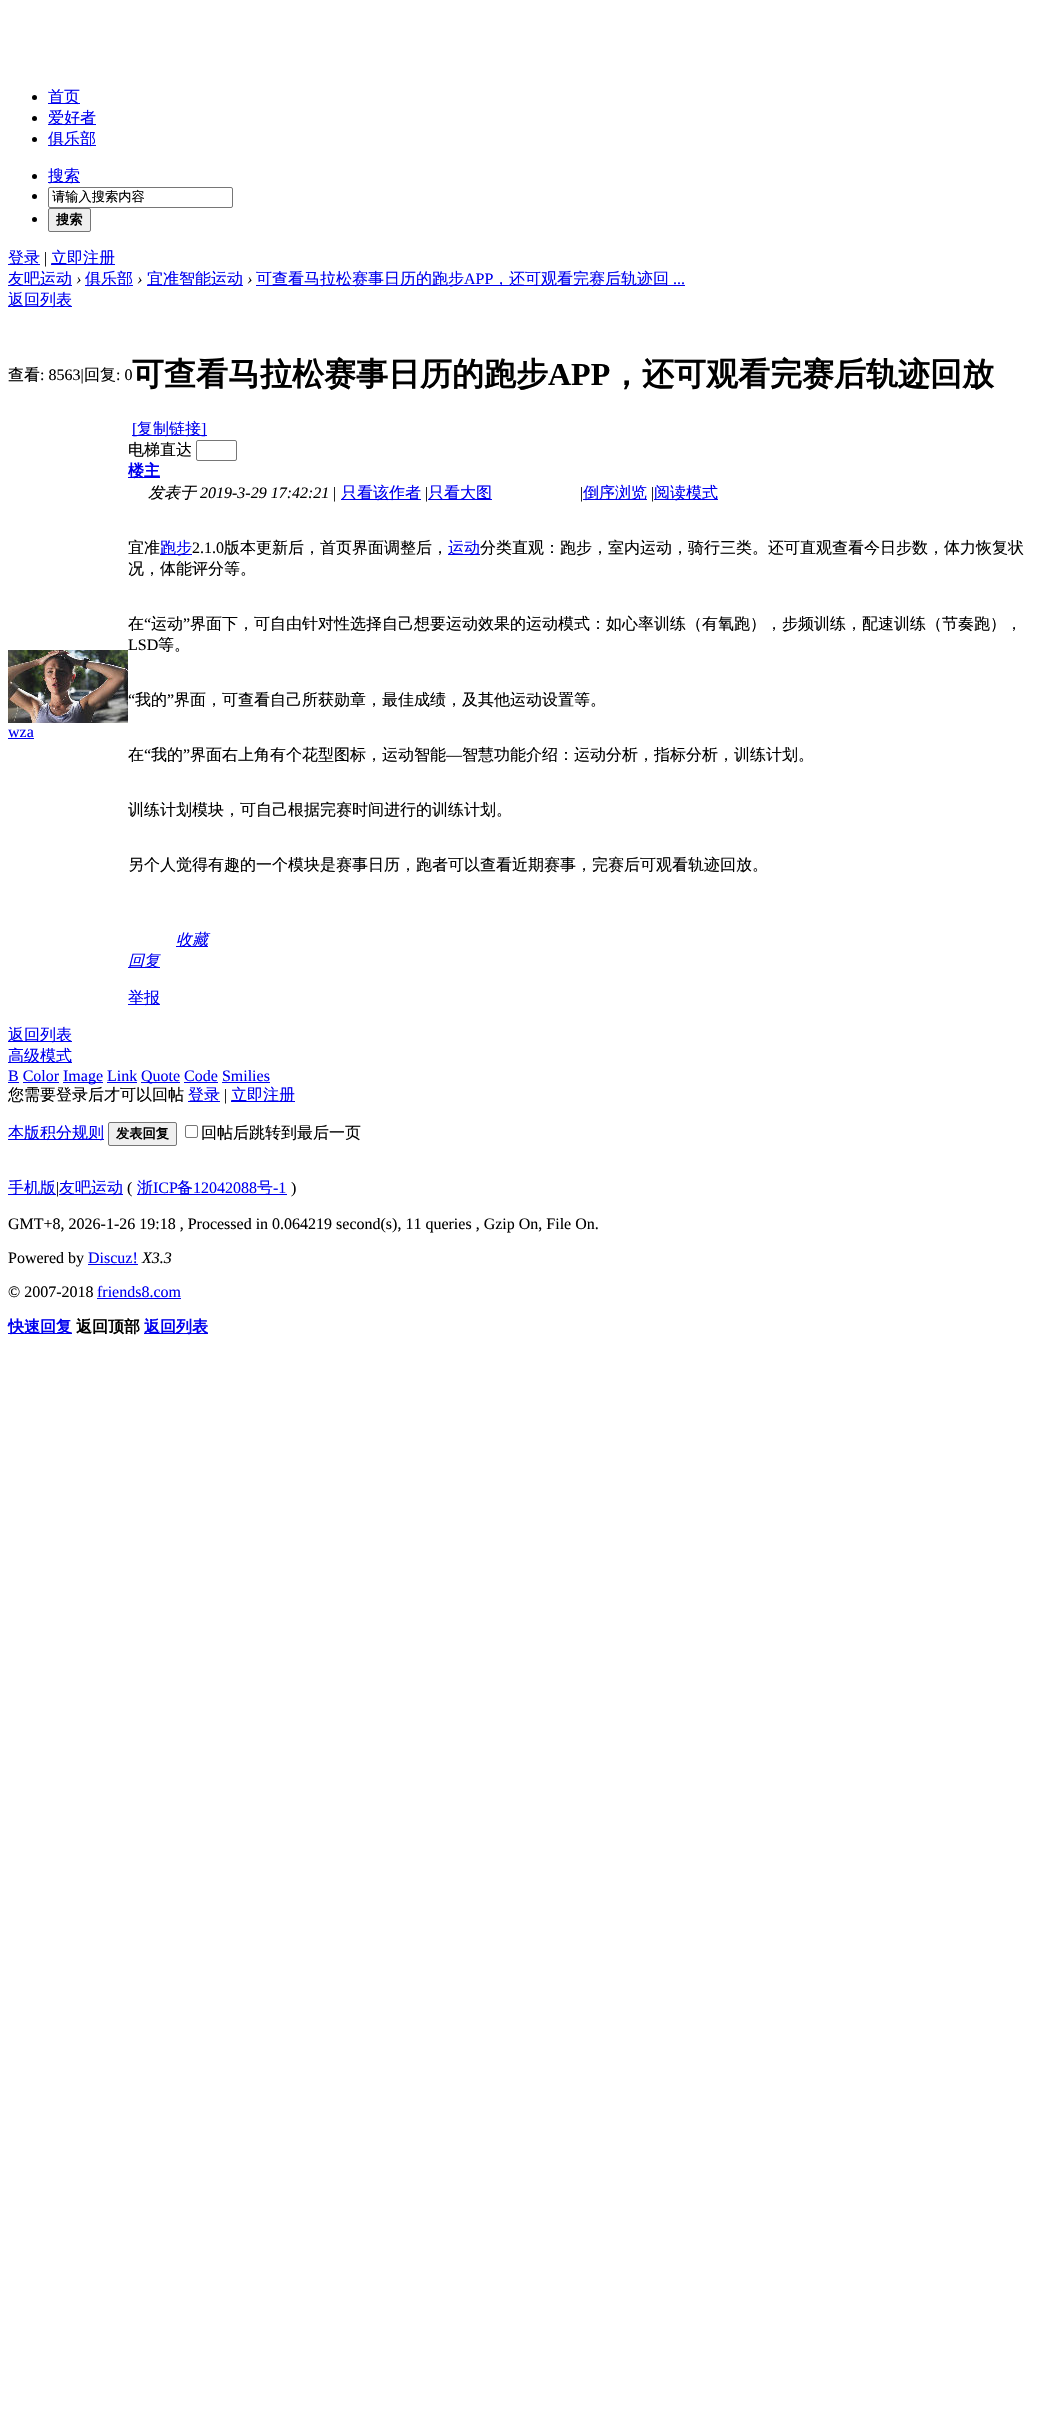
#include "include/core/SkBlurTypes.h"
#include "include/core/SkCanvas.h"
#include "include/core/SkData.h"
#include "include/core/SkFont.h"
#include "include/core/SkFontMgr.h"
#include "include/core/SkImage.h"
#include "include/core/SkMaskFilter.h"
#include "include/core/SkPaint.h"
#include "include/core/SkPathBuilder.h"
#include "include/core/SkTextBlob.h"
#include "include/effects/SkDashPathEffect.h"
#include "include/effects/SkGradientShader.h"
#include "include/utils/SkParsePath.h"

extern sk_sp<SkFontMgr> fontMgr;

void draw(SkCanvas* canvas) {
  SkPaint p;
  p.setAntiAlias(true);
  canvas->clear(SK_ColorWHITE);
  p.setColor(SK_ColorBLACK);
  canvas->drawCircle(34.5f, 97.5f, 2.5f, p);
  p.setColor(SkColorSetRGB(0, 0, 238));
  canvas->drawRect(SkRect::MakeLTRB(48, 103, 80, 104), p);
  p.setColor(SK_ColorBLACK);
  canvas->drawCircle(34.5f, 118.5f, 2.5f, p);
  p.setColor(SkColorSetRGB(0, 0, 238));
  canvas->drawRect(SkRect::MakeLTRB(48, 124, 96, 125), p);
  p.setColor(SK_ColorBLACK);
  canvas->drawCircle(34.5f, 139.5f, 2.5f, p);
  p.setColor(SkColorSetRGB(0, 0, 238));
  canvas->drawRect(SkRect::MakeLTRB(48, 145, 96, 146), p);
  p.setColor(SK_ColorBLACK);
  canvas->drawCircle(34.5f, 176.5f, 2.5f, p);
  p.setColor(SkColorSetRGB(0, 0, 238));
  canvas->drawRect(SkRect::MakeLTRB(48, 182, 80, 183), p);
  p.setColor(SK_ColorBLACK);
  canvas->drawCircle(34.5f, 196.5f, 2.5f, p);
  p.setStyle(SkPaint::kStroke_Style);
  p.setStrokeWidth(1);
  p.setColor(SkColorSetRGB(118, 118, 118));
  canvas->drawRoundRect(SkRect::MakeLTRB(48.5f, 187.5f, 232.5f, 207.5f), 1.5f, 1.5f, p);
  p.setStyle(SkPaint::kFill_Style);
  p.setColor(SK_ColorBLACK);
  canvas->drawCircle(34.5f, 219.5f, 2.5f, p);
  p.setColor(SkColorSetRGB(239, 239, 239));
  canvas->drawRoundRect(SkRect::MakeLTRB(48.5f, 208.5f, 90.5f, 231.5f), 1.5f, 1.5f, p);
  p.setStyle(SkPaint::kStroke_Style);
  p.setColor(SkColorSetRGB(118, 118, 118));
  canvas->drawRoundRect(SkRect::MakeLTRB(48.5f, 208.5f, 90.5f, 231.5f), 1.5f, 1.5f, p);
  p.setStyle(SkPaint::kFill_Style);
  p.setColor(SkColorSetRGB(0, 0, 238));
  canvas->drawRect(SkRect::MakeLTRB(8, 264, 40, 265), p);
  canvas->drawRect(SkRect::MakeLTRB(51, 264, 115, 265), p);
  canvas->drawRect(SkRect::MakeLTRB(8, 285, 72, 286), p);
  canvas->drawRect(SkRect::MakeLTRB(85, 285, 133, 286), p);
  canvas->drawRect(SkRect::MakeLTRB(147, 285, 243, 286), p);
  canvas->drawRect(SkRect::MakeLTRB(256, 285, 685, 286), p);
  canvas->drawRect(SkRect::MakeLTRB(8, 306, 72, 307), p);
  canvas->drawRect(SkRect::MakeLTRB(132, 435, 207, 436), p);
  canvas->drawImageRect(SkImages::DeferredFromEncodedData(SkData::MakeFromFileName("images/1.png")), SkRect::MakeLTRB(8, 650, 128, 723), SkSamplingOptions());
  canvas->drawRect(SkRect::MakeLTRB(8, 738, 34, 739), p);
  p.setStyle(SkPaint::kStroke_Style);
  p.setColor(SkColorSetRGB(118, 118, 118));
  canvas->drawRoundRect(SkRect::MakeLTRB(196.5f, 440.5f, 236.5f, 460.5f), 1.5f, 1.5f, p);
  p.setStyle(SkPaint::kFill_Style);
  p.setColor(SkColorSetRGB(0, 0, 238));
  canvas->drawRect(SkRect::MakeLTRB(128, 477, 160, 478), p);
  canvas->drawRect(SkRect::MakeLTRB(341, 499, 421, 500), p);
  canvas->drawRect(SkRect::MakeLTRB(428, 499, 492, 500), p);
  canvas->drawRect(SkRect::MakeLTRB(583, 499, 647, 500), p);
  canvas->drawRect(SkRect::MakeLTRB(654, 499, 718, 500), p);
  canvas->drawRect(SkRect::MakeLTRB(160, 554, 192, 555), p);
  canvas->drawRect(SkRect::MakeLTRB(448, 554, 480, 555), p);
  canvas->drawRect(SkRect::MakeLTRB(176, 946, 208, 947), p);
  canvas->drawRect(SkRect::MakeLTRB(128, 967, 160, 968), p);
  canvas->drawRect(SkRect::MakeLTRB(128, 1004, 160, 1005), p);
  canvas->drawRect(SkRect::MakeLTRB(8, 1041, 72, 1042), p);
  canvas->drawRect(SkRect::MakeLTRB(8, 1062, 72, 1063), p);
  canvas->drawRect(SkRect::MakeLTRB(8, 1082, 19, 1083), p);
  canvas->drawRect(SkRect::MakeLTRB(63, 1082, 103, 1083), p);
  canvas->drawRect(SkRect::MakeLTRB(141, 1082, 180, 1083), p);
  canvas->drawRect(SkRect::MakeLTRB(23, 1082, 59, 1083), p);
  canvas->drawRect(SkRect::MakeLTRB(107, 1082, 137, 1083), p);
  canvas->drawRect(SkRect::MakeLTRB(184, 1082, 218, 1083), p);
  canvas->drawRect(SkRect::MakeLTRB(222, 1082, 270, 1083), p);
  canvas->drawRect(SkRect::MakeLTRB(188, 1101, 220, 1102), p);
  canvas->drawRect(SkRect::MakeLTRB(231, 1101, 295, 1102), p);
  canvas->drawRect(SkRect::MakeLTRB(8, 1139, 104, 1140), p);
  p.setColor(SkColorSetRGB(239, 239, 239));
  canvas->drawRoundRect(SkRect::MakeLTRB(108.5f, 1122.5f, 176.5f, 1145.5f), 1.5f, 1.5f, p);
  p.setStyle(SkPaint::kStroke_Style);
  p.setColor(SkColorSetRGB(118, 118, 118));
  canvas->drawRoundRect(SkRect::MakeLTRB(108.5f, 1122.5f, 176.5f, 1145.5f), 1.5f, 1.5f, p);
  canvas->drawRoundRect(SkRect::MakeLTRB(185.5f, 1125.5f, 197.5f, 1137.5f), 1.5f, 1.5f, p);
  p.setStyle(SkPaint::kFill_Style);
  p.setColor(SkColorSetRGB(0, 0, 238));
  canvas->drawRect(SkRect::MakeLTRB(8, 1194, 56, 1195), p);
  canvas->drawRect(SkRect::MakeLTRB(59, 1194, 123, 1195), p);
  canvas->drawRect(SkRect::MakeLTRB(137, 1194, 287, 1195), p);
  canvas->drawRect(SkRect::MakeLTRB(88, 1264, 138, 1265), p);
  canvas->drawRect(SkRect::MakeLTRB(97, 1298, 181, 1299), p);
  canvas->drawRect(SkRect::MakeLTRB(8, 1333, 72, 1334), p);
  canvas->drawRect(SkRect::MakeLTRB(144, 1333, 208, 1334), p);
  SkFont font1(fontMgr->matchFamilyStyle("WenQuanYi Zen Hei", SkFontStyle(500, SkFontStyle::kNormal_Width, SkFontStyle::kUpright_Slant)), 16);
  font1.setSubpixel(true);
  canvas->drawString("首页", 48, 102, font1, p);
  canvas->drawString("爱好者", 48, 123, font1, p);
  canvas->drawString("俱乐部", 48, 144, font1, p);
  canvas->drawString("搜索", 48, 181, font1, p);
  SkFont font2(fontMgr->matchFamilyStyle("WenQuanYi Zen Hei", SkFontStyle(500, SkFontStyle::kNormal_Width, SkFontStyle::kUpright_Slant)), 13.25f);
  font2.setSubpixel(true);
  p.setColor(SK_ColorBLACK);
  canvas->drawString("请输入搜索内容", 52, 201, font2, p);
  SkFont font3(fontMgr->matchFamilyStyle("WenQuanYi Zen Hei", SkFontStyle::Bold()), 13.25f);
  font3.setSubpixel(true);
  canvas->drawString("搜索", 56, 224, font3, p);
  p.setColor(SkColorSetRGB(0, 0, 238));
  canvas->drawString("登录", 8, 263, font1, p);
  SkFont font4(fontMgr->matchFamilyStyle("Liberation Serif", SkFontStyle::Normal()), 16);
  font4.setSubpixel(true);
  p.setColor(SK_ColorBLACK);
  canvas->drawString("|", 44, 263, font4, p);
  p.setColor(SkColorSetRGB(0, 0, 238));
  canvas->drawString("立即注册", 51, 263, font1, p);
  canvas->drawString("友吧运动", 8, 284, font1, p);
  SkFont font5(fontMgr->matchFamilyStyle("Liberation Serif", SkFontStyle::Italic()), 16);
  font5.setSubpixel(true);
  p.setColor(SK_ColorBLACK);
  canvas->drawString("›", 76, 284, font5, p);
  p.setColor(SkColorSetRGB(0, 0, 238));
  canvas->drawString("俱乐部", 85, 284, font1, p);
  p.setColor(SK_ColorBLACK);
  canvas->drawString("›", 137, 284, font5, p);
  p.setColor(SkColorSetRGB(0, 0, 238));
  canvas->drawString("宜准智能运动", 147, 284, font1, p);
  p.setColor(SK_ColorBLACK);
  canvas->drawString("›", 247, 284, font5, p);
  p.setColor(SkColorSetRGB(0, 0, 238));
  canvas->drawString("可查看马拉松赛事日历的跑步", 256, 284, font1, p);
  canvas->drawString("APP", 464, 284, font4, p);
  canvas->drawString("，还可观看完赛后轨迹回", 493, 284, font1, p);
  canvas->drawString("...", 673, 284, font4, p);
  canvas->drawString("返回列表", 8, 305, font1, p);
  p.setColor(SK_ColorBLACK);
  canvas->drawString("查看", 8, 380, font1, p);
  canvas->drawString(": 8563|", 40, 380, font4, p);
  canvas->drawString("回复", 84, 380, font1, p);
  canvas->drawString(": 0", 116, 380, font4, p);
  SkFont font6(fontMgr->matchFamilyStyle("WenQuanYi Zen Hei", SkFontStyle::Bold()), 32);
  font6.setSubpixel(true);
  canvas->drawString("可查看马拉松赛事日历的跑步", 132, 385, font6, p);
  SkFont font7(fontMgr->matchFamilyStyle("Liberation Serif", SkFontStyle::Bold()), 32);
  font7.setSubpixel(true);
  canvas->drawString("APP", 548, 385, font7, p);
  canvas->drawString("，还可观看完赛后轨迹回放", 610, 385, font6, p);
  p.setColor(SkColorSetRGB(0, 0, 238));
  canvas->drawString("[", 132, 434, font4, p);
  canvas->drawString("复制链接", 137, 434, font1, p);
  canvas->drawString("]", 201, 434, font4, p);
  canvas->drawString("wza", 8, 737, font4, p);
  p.setColor(SK_ColorBLACK);
  canvas->drawString("电梯直达", 128, 455, font1, p);
  SkFont font8(fontMgr->matchFamilyStyle("WenQuanYi Zen Hei", SkFontStyle::Bold()), 16);
  font8.setSubpixel(true);
  p.setColor(SkColorSetRGB(0, 0, 238));
  canvas->drawString("楼主", 128, 476, font8, p);
  SkFont font9(fontMgr->matchFamilyStyle("WenQuanYi Zen Hei", SkFontStyle(500, SkFontStyle::kNormal_Width, SkFontStyle::kItalic_Slant)), 16);
  font9.setSubpixel(true);
  p.setColor(SK_ColorBLACK);
  canvas->drawString("发表于", 148, 498, font9, p);
  canvas->drawString("2019-3-29 17:42:21", 200, 498, font5, p);
  canvas->drawString("|", 333, 498, font4, p);
  p.setColor(SkColorSetRGB(0, 0, 238));
  canvas->drawString("只看该作者", 341, 498, font1, p);
  p.setColor(SK_ColorBLACK);
  canvas->drawString("|", 425, 498, font4, p);
  p.setColor(SkColorSetRGB(0, 0, 238));
  canvas->drawString("只看大图", 428, 498, font1, p);
  p.setColor(SK_ColorBLACK);
  canvas->drawString("|", 580, 498, font4, p);
  p.setColor(SkColorSetRGB(0, 0, 238));
  canvas->drawString("倒序浏览", 583, 498, font1, p);
  p.setColor(SK_ColorBLACK);
  canvas->drawString("|", 651, 498, font4, p);
  p.setColor(SkColorSetRGB(0, 0, 238));
  canvas->drawString("阅读模式", 654, 498, font1, p);
  p.setColor(SK_ColorBLACK);
  canvas->drawString("宜准", 128, 553, font1, p);
  p.setColor(SkColorSetRGB(0, 0, 238));
  canvas->drawString("跑步", 160, 553, font1, p);
  p.setColor(SK_ColorBLACK);
  canvas->drawString("2.1.0", 192, 553, font4, p);
  canvas->drawString("版本更新后，首页界面调整后，", 224, 553, font1, p);
  p.setColor(SkColorSetRGB(0, 0, 238));
  canvas->drawString("运动", 448, 553, font1, p);
  p.setColor(SK_ColorBLACK);
  canvas->drawString("分类直观：跑步，室内运动，骑行三类。还可直观查看今日步数，体力恢复状", 480, 553, font1, p);
  canvas->drawString("况，体能评分等。", 128, 574, font1, p);
  canvas->drawString("在", 128, 629, font1, p);
  canvas->drawString("“", 144, 629, font4, p);
  canvas->drawString("运动", 151, 629, font1, p);
  canvas->drawString("”", 183, 629, font4, p);
  canvas->drawString("界面下，可自由针对性选择自己想要运动效果的运动模式：如心率训练（有氧跑），步频训练，配速训练（节奏跑），", 190, 629, font1, p);
  canvas->drawString("LSD", 128, 650, font4, p);
  canvas->drawString("等。", 158, 650, font1, p);
  canvas->drawString("“", 128, 705, font4, p);
  canvas->drawString("我的", 135, 705, font1, p);
  canvas->drawString("”", 167, 705, font4, p);
  canvas->drawString("界面，可查看自己所获勋章，最佳成绩，及其他运动设置等。", 174, 705, font1, p);
  canvas->drawString("在", 128, 760, font1, p);
  canvas->drawString("“", 144, 760, font4, p);
  canvas->drawString("我的", 151, 760, font1, p);
  canvas->drawString("”", 183, 760, font4, p);
  canvas->drawString("界面右上角有个花型图标，运动智能", 190, 760, font1, p);
  canvas->drawString("—", 446, 760, font4, p);
  canvas->drawString("智慧功能介绍：运动分析，指标分析，训练计划。", 462, 760, font1, p);
  canvas->drawString("训练计划模块，可自己根据完赛时间进行的训练计划。", 128, 815, font1, p);
  canvas->drawString("另个人觉得有趣的一个模块是赛事日历，跑者可以查看近期赛事，完赛后可观看轨迹回放。", 128, 870, font1, p);
  p.setColor(SkColorSetRGB(0, 0, 238));
  canvas->drawString("收藏", 176, 945, font9, p);
  canvas->drawString("回复", 128, 966, font9, p);
  canvas->drawString("举报", 128, 1003, font1, p);
  canvas->drawString("返回列表", 8, 1040, font1, p);
  canvas->drawString("高级模式", 8, 1061, font1, p);
  canvas->drawString("B Color", 8, 1081, font4, p);
  canvas->drawString("Image Link", 63, 1081, font4, p);
  canvas->drawString("Quote Code Smilies", 141, 1081, font4, p);
  p.setColor(SK_ColorBLACK);
  canvas->drawString("您需要登录后才可以回帖", 8, 1100, font1, p);
  p.setColor(SkColorSetRGB(0, 0, 238));
  canvas->drawString("登录", 188, 1100, font1, p);
  p.setColor(SK_ColorBLACK);
  canvas->drawString("|", 224, 1100, font4, p);
  p.setColor(SkColorSetRGB(0, 0, 238));
  canvas->drawString("立即注册", 231, 1100, font1, p);
  canvas->drawString("本版积分规则", 8, 1138, font1, p);
  p.setColor(SK_ColorBLACK);
  canvas->drawString("发表回复", 116, 1138, font3, p);
  canvas->drawString("回帖后跳转到最后一页", 201, 1138, font1, p);
  p.setColor(SkColorSetRGB(0, 0, 238));
  canvas->drawString("手机版", 8, 1193, font1, p);
  p.setColor(SK_ColorBLACK);
  canvas->drawString("|", 56, 1193, font4, p);
  p.setColor(SkColorSetRGB(0, 0, 238));
  canvas->drawString("友吧运动", 59, 1193, font1, p);
  p.setColor(SK_ColorBLACK);
  canvas->drawString("(", 127, 1193, font4, p);
  p.setColor(SkColorSetRGB(0, 0, 238));
  canvas->drawString("浙", 137, 1193, font1, p);
  canvas->drawString("ICP", 153, 1193, font4, p);
  canvas->drawString("备", 177, 1193, font1, p);
  canvas->drawString("12042088", 193, 1193, font4, p);
  canvas->drawString("号", 257, 1193, font1, p);
  canvas->drawString("-1", 273, 1193, font4, p);
  p.setColor(SK_ColorBLACK);
  canvas->drawString(")", 291, 1193, font4, p);
  canvas->drawString("GMT+8, 2026-1-26 19:18 , Processed in 0.064219 second(s), 11 queries , Gzip On, File On.", 8, 1229, font4, p);
  canvas->drawString("Powered by", 8, 1263, font4, p);
  p.setColor(SkColorSetRGB(0, 0, 238));
  canvas->drawString("Discuz!", 88, 1263, font4, p);
  p.setColor(SK_ColorBLACK);
  canvas->drawString("X3.3", 142, 1263, font5, p);
  canvas->drawString("© 2007-2018", 8, 1297, font4, p);
  p.setColor(SkColorSetRGB(0, 0, 238));
  canvas->drawString("friends8.com", 97, 1297, font4, p);
  canvas->drawString("快速回复", 8, 1332, font8, p);
  p.setColor(SK_ColorBLACK);
  canvas->drawString("返回顶部", 76, 1332, font8, p);
  p.setColor(SkColorSetRGB(0, 0, 238));
  canvas->drawString("返回列表", 144, 1332, font8, p);
}
